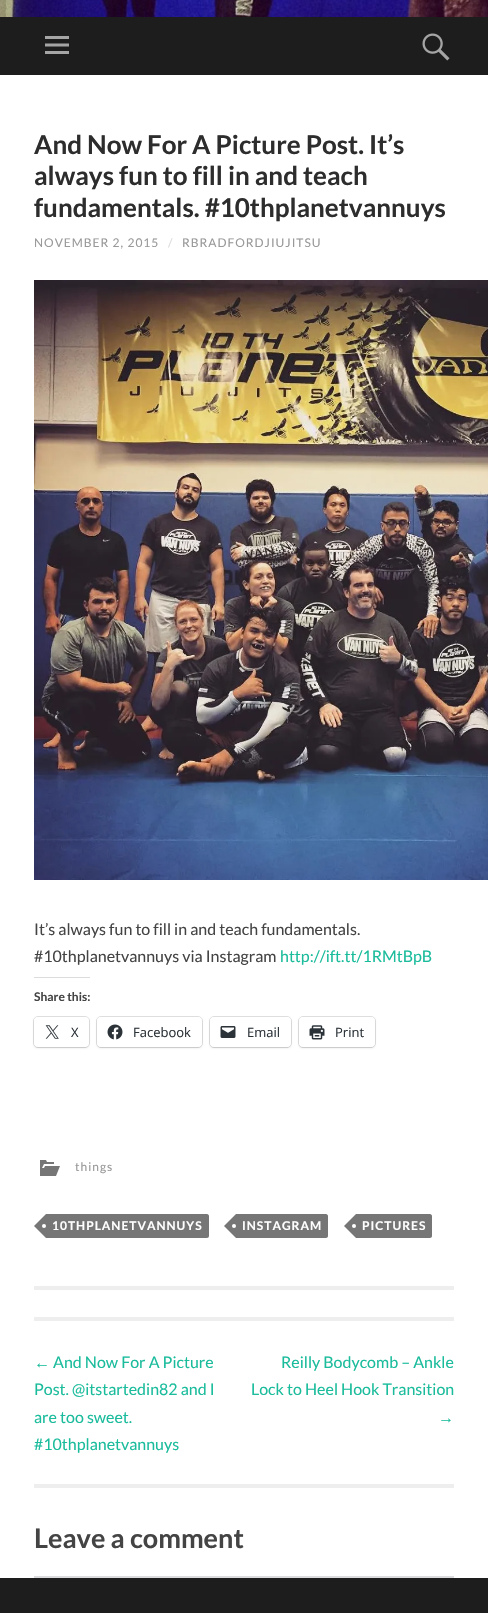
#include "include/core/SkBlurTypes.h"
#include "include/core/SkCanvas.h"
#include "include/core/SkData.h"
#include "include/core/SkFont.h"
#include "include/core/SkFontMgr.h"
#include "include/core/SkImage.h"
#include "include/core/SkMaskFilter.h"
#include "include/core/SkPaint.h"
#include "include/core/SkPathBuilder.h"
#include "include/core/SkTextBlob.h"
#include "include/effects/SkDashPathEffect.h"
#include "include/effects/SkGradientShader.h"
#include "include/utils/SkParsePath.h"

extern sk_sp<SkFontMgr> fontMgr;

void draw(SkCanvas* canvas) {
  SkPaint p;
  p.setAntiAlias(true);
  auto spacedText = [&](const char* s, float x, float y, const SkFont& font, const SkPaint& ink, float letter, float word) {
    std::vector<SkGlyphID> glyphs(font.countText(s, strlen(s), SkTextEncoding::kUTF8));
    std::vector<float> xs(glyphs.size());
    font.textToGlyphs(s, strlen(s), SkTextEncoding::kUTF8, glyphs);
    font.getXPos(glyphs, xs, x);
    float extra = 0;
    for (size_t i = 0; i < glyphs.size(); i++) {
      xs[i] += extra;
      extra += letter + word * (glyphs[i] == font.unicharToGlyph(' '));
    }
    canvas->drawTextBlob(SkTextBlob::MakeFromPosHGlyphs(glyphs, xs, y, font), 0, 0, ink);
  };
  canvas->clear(SK_ColorWHITE);
  canvas->drawImageRect(SkImages::DeferredFromEncodedData(SkData::MakeFromFileName("images/1.png")), SkRect::MakeLTRB(0, 0, 488, 17), SkSamplingOptions());
  p.setColor(SkColorSetRGB(29, 29, 29));
  canvas->drawRect(SkRect::MakeLTRB(0, 17, 488, 75), p);
  canvas->drawImageRect(SkImages::DeferredFromEncodedData(SkData::MakeFromFileName("images/2.png")), SkRect::MakeLTRB(45, 36, 69, 54), SkSamplingOptions());
  canvas->drawImageRect(SkImages::DeferredFromEncodedData(SkData::MakeFromFileName("images/3.png")), SkRect::MakeLTRB(422, 33, 450, 61), SkSamplingOptions());
  p.setColor(SkColorSetRGB(238, 238, 238));
  canvas->drawRect(SkRect::MakeLTRB(34, 1286, 454, 1290), p);
  canvas->drawImageRect(SkImages::DeferredFromEncodedData(SkData::MakeFromFileName("images/4.png")), SkRect::MakeLTRB(34, 280, 488, 880), SkSamplingOptions());
  p.setColor(SkColorSetRGB(220, 220, 222));
  canvas->drawRect(SkRect::MakeLTRB(34, 977, 90, 978), p);
  p.setStyle(SkPaint::kStroke_Style);
  p.setStrokeWidth(1);
  p.setColor(SkColorSetRGB(224, 224, 224));
  canvas->drawRoundRect(SkRect::MakeLTRB(33.5f, 1016.5f, 89.5f, 1047.5f), 4.5f, 4.5f, p);
  p.setStyle(SkPaint::kFill_Style);
  p.setColor(SkColorSetARGB(31, 0, 0, 0));
  p.setMaskFilter(SkMaskFilter::MakeBlur(kNormal_SkBlurStyle, 1));
  canvas->drawRoundRect(SkRect::MakeLTRB(34, 1018, 89, 1048), 4, 4, p);
  p.setMaskFilter(nullptr);
  p.setColor(SK_ColorWHITE);
  canvas->drawRoundRect(SkRect::MakeLTRB(34, 1017, 89, 1047), 4, 4, p);
  canvas->drawImageRect(SkImages::DeferredFromEncodedData(SkData::MakeFromFileName("images/5.png")), SkRect::MakeLTRB(45, 1025, 59, 1039), SkSamplingOptions());
  p.setStyle(SkPaint::kStroke_Style);
  p.setColor(SkColorSetRGB(224, 224, 224));
  canvas->drawRoundRect(SkRect::MakeLTRB(96.5f, 1016.5f, 202.5f, 1047.5f), 4.5f, 4.5f, p);
  p.setStyle(SkPaint::kFill_Style);
  p.setColor(SkColorSetARGB(31, 0, 0, 0));
  p.setMaskFilter(SkMaskFilter::MakeBlur(kNormal_SkBlurStyle, 1));
  canvas->drawRoundRect(SkRect::MakeLTRB(97, 1018, 202, 1048), 4, 4, p);
  p.setMaskFilter(nullptr);
  p.setColor(SK_ColorWHITE);
  canvas->drawRoundRect(SkRect::MakeLTRB(97, 1017, 202, 1047), 4, 4, p);
  canvas->drawImageRect(SkImages::DeferredFromEncodedData(SkData::MakeFromFileName("images/6.png")), SkRect::MakeLTRB(107, 1024, 123, 1040), SkSamplingOptions());
  p.setStyle(SkPaint::kStroke_Style);
  p.setColor(SkColorSetRGB(224, 224, 224));
  canvas->drawRoundRect(SkRect::MakeLTRB(209.5f, 1016.5f, 291.5f, 1047.5f), 4.5f, 4.5f, p);
  p.setStyle(SkPaint::kFill_Style);
  p.setColor(SkColorSetARGB(31, 0, 0, 0));
  p.setMaskFilter(SkMaskFilter::MakeBlur(kNormal_SkBlurStyle, 1));
  canvas->drawRoundRect(SkRect::MakeLTRB(210, 1018, 291, 1048), 4, 4, p);
  p.setMaskFilter(nullptr);
  p.setColor(SK_ColorWHITE);
  canvas->drawRoundRect(SkRect::MakeLTRB(210, 1017, 291, 1047), 4, 4, p);
  canvas->drawImageRect(SkImages::DeferredFromEncodedData(SkData::MakeFromFileName("images/7.png")), SkRect::MakeLTRB(220, 1026, 236, 1038), SkSamplingOptions());
  p.setStyle(SkPaint::kStroke_Style);
  p.setColor(SkColorSetRGB(224, 224, 224));
  canvas->drawRoundRect(SkRect::MakeLTRB(298.5f, 1016.5f, 375.5f, 1047.5f), 4.5f, 4.5f, p);
  p.setStyle(SkPaint::kFill_Style);
  p.setColor(SkColorSetARGB(31, 0, 0, 0));
  p.setMaskFilter(SkMaskFilter::MakeBlur(kNormal_SkBlurStyle, 1));
  canvas->drawRoundRect(SkRect::MakeLTRB(299, 1018, 375, 1048), 4, 4, p);
  p.setMaskFilter(nullptr);
  p.setColor(SK_ColorWHITE);
  canvas->drawRoundRect(SkRect::MakeLTRB(299, 1017, 375, 1047), 4, 4, p);
  canvas->drawImageRect(SkImages::DeferredFromEncodedData(SkData::MakeFromFileName("images/8.png")), SkRect::MakeLTRB(309, 1025, 325, 1040), SkSamplingOptions());
  canvas->drawImageRect(SkImages::DeferredFromEncodedData(SkData::MakeFromFileName("images/9.png")), SkRect::MakeLTRB(40, 1160, 60, 1176), SkSamplingOptions());
  p.setColor(SkColorSetRGB(118, 118, 118));
  canvas->drawPath(SkPathBuilder().moveTo(46, 1214).lineTo(207, 1214).cubicTo(208, 1214, 209, 1215, 209, 1216).lineTo(209, 1236).cubicTo(209, 1237, 208, 1238, 207, 1238).lineTo(46, 1238).close().detach(), p);
  canvas->drawPath(SkPathBuilder().moveTo(46, 1214).lineTo(46, 1238).lineTo(34, 1226).close().detach(), p);
  p.setColor(SK_ColorWHITE);
  canvas->drawCircle(44, 1226, 2, p);
  p.setColor(SkColorSetRGB(118, 118, 118));
  canvas->drawPath(SkPathBuilder().moveTo(236, 1214).lineTo(326, 1214).cubicTo(327, 1214, 328, 1215, 328, 1216).lineTo(328, 1236).cubicTo(328, 1237, 327, 1238, 326, 1238).lineTo(236, 1238).close().detach(), p);
  canvas->drawPath(SkPathBuilder().moveTo(236, 1214).lineTo(236, 1238).lineTo(224, 1226).close().detach(), p);
  p.setColor(SK_ColorWHITE);
  canvas->drawCircle(234, 1226, 2, p);
  p.setColor(SkColorSetRGB(118, 118, 118));
  canvas->drawPath(SkPathBuilder().moveTo(356, 1214).lineTo(430, 1214).cubicTo(431, 1214, 432, 1215, 432, 1216).lineTo(432, 1236).cubicTo(432, 1237, 431, 1238, 430, 1238).lineTo(356, 1238).close().detach(), p);
  canvas->drawPath(SkPathBuilder().moveTo(356, 1214).lineTo(356, 1238).lineTo(344, 1226).close().detach(), p);
  p.setColor(SK_ColorWHITE);
  canvas->drawCircle(354, 1226, 2, p);
  p.setColor(SkColorSetRGB(238, 238, 238));
  canvas->drawRect(SkRect::MakeLTRB(34, 1317, 454, 1321), p);
  canvas->drawRect(SkRect::MakeLTRB(34, 1484, 454, 1488), p);
  p.setColor(SkColorSetRGB(220, 220, 222));
  canvas->drawRect(SkRect::MakeLTRB(34, 1576, 454, 1578), p);
  p.setColor(SkColorSetRGB(29, 29, 29));
  canvas->drawRect(SkRect::MakeLTRB(0, 1578, 488, 1613), p);
  SkFont font1(fontMgr->matchFamilyStyle("Lato", SkFontStyle::Bold()), 26);
  font1.setSubpixel(true);
  p.setColor(SkColorSetRGB(45, 45, 45));
  canvas->drawString("And Now For A Picture Post. It’s", 34, 154, font1, p);
  canvas->drawString("always fun to fill in and teach", 34, 185, font1, p);
  canvas->drawString("fundamentals. #10thplanetvannuys", 34, 217, font1, p);
  SkFont font2(fontMgr->matchFamilyStyle("Lato", SkFontStyle::Normal()), 12);
  font2.setSubpixel(true);
  p.setColor(SkColorSetRGB(153, 153, 153));
  spacedText("NOVEMBER 2, 2015", 34, 247, font2, p, 1, 0);
  p.setColor(SkColorSetRGB(221, 221, 221));
  spacedText("/", 168, 247, font2, p, 1, 0);
  p.setColor(SkColorSetRGB(153, 153, 153));
  spacedText("RBRADFORDJIUJITSU", 182, 247, font2, p, 1, 0);
  SkFont font3(fontMgr->matchFamilyStyle("Lato", SkFontStyle::Normal()), 16);
  font3.setSubpixel(true);
  p.setColor(SkColorSetRGB(68, 68, 68));
  canvas->drawString("It’s always fun to fill in and teach fundamentals.", 34, 935, font3, p);
  canvas->drawString("#10thplanetvannuys via Instagram", 34, 962, font3, p);
  p.setColor(SkColorSetRGB(26, 188, 156));
  canvas->drawString("http://ift.tt/1RMtBpB", 280, 962, font3, p);
  SkFont font4(fontMgr->matchFamilyStyle("Lato", SkFontStyle::Bold()), 12);
  font4.setSubpixel(true);
  p.setColor(SkColorSetRGB(68, 68, 68));
  canvas->drawString("Share this:", 34, 1001, font4, p);
  SkFont font5(fontMgr->matchFamilyStyle("Open Sans", SkFontStyle::Normal()), 13);
  font5.setSubpixel(true);
  p.setColor(SkColorSetRGB(44, 51, 56));
  canvas->drawString("X", 71, 1037, font5, p);
  canvas->drawString("Facebook", 133, 1037, font5, p);
  canvas->drawString("Email", 247, 1037, font5, p);
  canvas->drawString("Print", 335, 1037, font5, p);
  p.setColor(SkColorSetRGB(153, 153, 153));
  spacedText("things", 75, 1171, font2, p, 1, 0);
  p.setColor(SK_ColorWHITE);
  spacedText("10THPLANETVANNUYS", 52, 1230, font4, p, 1, 0);
  spacedText("INSTAGRAM", 242, 1230, font4, p, 1, 0);
  spacedText("PICTURES", 362, 1230, font4, p, 1, 0);
  SkFont font6(fontMgr->matchFamilyStyle("Liberation Sans", SkFontStyle::Normal()), 16);
  font6.setSubpixel(true);
  p.setColor(SkColorSetRGB(26, 188, 156));
  canvas->drawString("←", 34, 1368, font6, p);
  canvas->drawString("And Now For A Picture", 53, 1368, font3, p);
  canvas->drawString("Post. @itstartedin82 and I", 34, 1395, font3, p);
  canvas->drawString("are too sweet.", 34, 1423, font3, p);
  canvas->drawString("#10thplanetvannuys", 34, 1450, font3, p);
  canvas->drawString("Reilly Bodycomb – Ankle", 281, 1368, font3, p);
  canvas->drawString("Lock to Heel Hook Transition", 251, 1395, font3, p);
  canvas->drawString("→", 438, 1423, font6, p);
  SkFont font7(fontMgr->matchFamilyStyle("Lato", SkFontStyle::Bold()), 27);
  font7.setSubpixel(true);
  p.setColor(SkColorSetRGB(68, 68, 68));
  canvas->drawString("Leave a comment", 34, 1548, font7, p);
}
